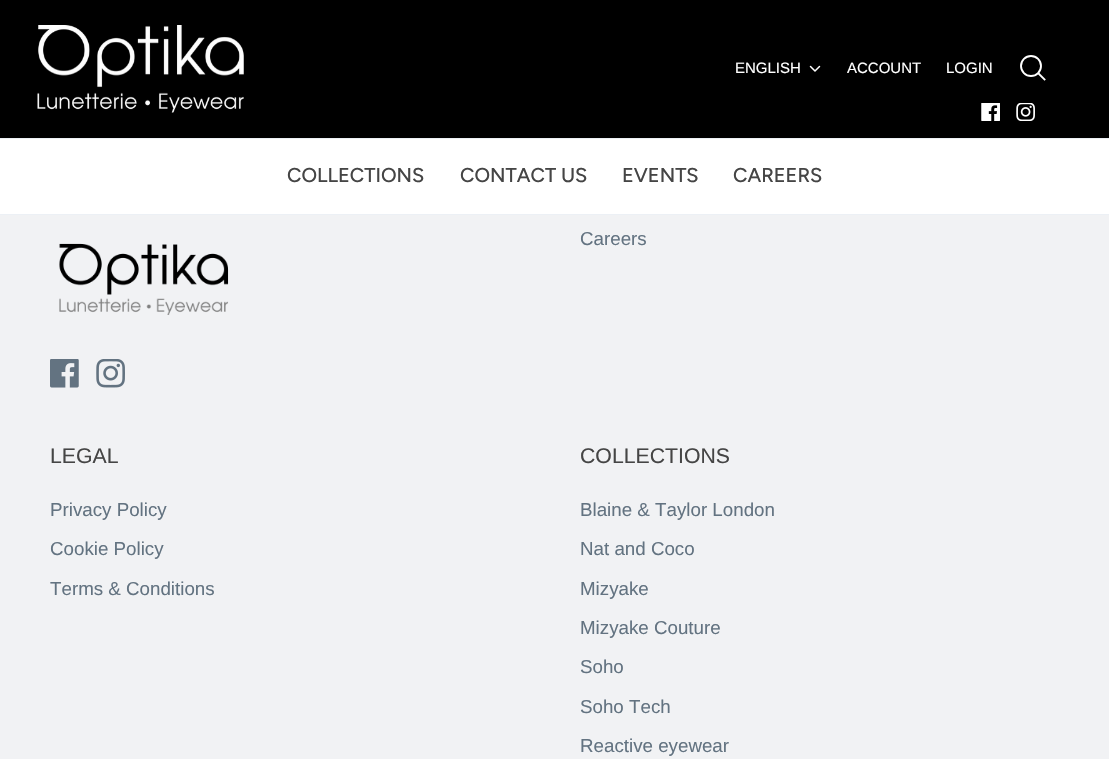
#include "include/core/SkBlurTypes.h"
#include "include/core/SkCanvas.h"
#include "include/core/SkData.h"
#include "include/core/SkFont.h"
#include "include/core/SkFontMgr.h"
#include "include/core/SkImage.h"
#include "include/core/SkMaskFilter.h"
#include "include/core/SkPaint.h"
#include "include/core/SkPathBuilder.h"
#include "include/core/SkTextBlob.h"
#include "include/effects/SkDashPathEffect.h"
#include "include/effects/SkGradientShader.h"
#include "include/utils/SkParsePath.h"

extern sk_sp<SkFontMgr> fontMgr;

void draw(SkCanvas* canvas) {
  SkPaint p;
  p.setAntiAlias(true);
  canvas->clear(SkColorSetRGB(241, 242, 244));
  p.setColor(SK_ColorBLACK);
  canvas->drawRect(SkRect::MakeLTRB(0, 0, 1109, 138), p);
  p.setColor(SkColorSetRGB(236, 240, 245));
  canvas->drawRect(SkRect::MakeLTRB(0, 138, 1109, 139), p);
  canvas->drawImageRect(SkImages::DeferredFromEncodedData(SkData::MakeFromFileName("images/1.png")), SkRect::MakeLTRB(37, 25, 244, 113), SkSamplingOptions());
  p.setStyle(SkPaint::kStroke_Style);
  p.setStrokeWidth(1.5f);
  p.setStrokeCap(SkPaint::kRound_Cap);
  p.setStrokeJoin(SkPaint::kRound_Join);
  p.setColor(SK_ColorWHITE);
  canvas->drawPath(SkPathBuilder().moveTo(810.5f, 66.5f).lineTo(815, 71).lineTo(819.5f, 66.5f).detach(), p);
  p.setStrokeWidth(1.9f);
  p.setStrokeCap(SkPaint::kButt_Cap);
  p.setStrokeJoin(SkPaint::kMiter_Join);
  canvas->drawCircle(1031, 66, 10, p);
  p.setStrokeCap(SkPaint::kSquare_Cap);
  canvas->drawPath(SkPathBuilder().moveTo(1038.5f, 73.5f).lineTo(1044.5f, 79.5f).detach(), p);
  canvas->drawImageRect(SkImages::DeferredFromEncodedData(SkData::MakeFromFileName("images/2.png")), SkRect::MakeLTRB(981, 103, 1000, 121), SkSamplingOptions());
  canvas->drawImageRect(SkImages::DeferredFromEncodedData(SkData::MakeFromFileName("images/3.png")), SkRect::MakeLTRB(1016, 103, 1035, 121), SkSamplingOptions());
  p.setStyle(SkPaint::kFill_Style);
  p.setColor(SkColorSetRGB(236, 240, 245));
  canvas->drawRect(SkRect::MakeLTRB(0, 214, 1109, 215), p);
  p.setColor(SK_ColorWHITE);
  canvas->drawRect(SkRect::MakeLTRB(0, 139, 1109, 214), p);
  canvas->drawImageRect(SkImages::DeferredFromEncodedData(SkData::MakeFromFileName("images/4.png")), SkRect::MakeLTRB(59, 243, 229, 315), SkSamplingOptions());
  canvas->drawImageRect(SkImages::DeferredFromEncodedData(SkData::MakeFromFileName("images/5.png")), SkRect::MakeLTRB(50, 359, 79, 388), SkSamplingOptions());
  canvas->drawImageRect(SkImages::DeferredFromEncodedData(SkData::MakeFromFileName("images/6.png")), SkRect::MakeLTRB(96, 359, 125, 388), SkSamplingOptions());
  SkFont font1(fontMgr->matchFamilyStyle("Liberation Sans", SkFontStyle::Normal()), 15);
  font1.setSubpixel(true);
  canvas->drawString("ENGLISH", 735, 73, font1, p);
  canvas->drawString("ACCOUNT", 847, 73, font1, p);
  canvas->drawString("LOGIN", 946, 73, font1, p);
  SkFont font2(fontMgr->matchFamilyStyle("Figtree", SkFontStyle(500, SkFontStyle::kNormal_Width, SkFontStyle::kUpright_Slant)), 20);
  font2.setSubpixel(true);
  p.setColor(SkColorSetRGB(69, 69, 69));
  canvas->drawString("COLLECTIONS", 287, 182, font2, p);
  canvas->drawString("CONTACT US", 460, 182, font2, p);
  canvas->drawString("EVENTS", 622, 182, font2, p);
  canvas->drawString("CAREERS", 733, 182, font2, p);
  SkFont font3(fontMgr->matchFamilyStyle("Liberation Sans", SkFontStyle::Normal()), 18.75f);
  font3.setSubpixel(true);
  p.setColor(SkColorSetRGB(99, 115, 129));
  canvas->drawString("Careers", 580, 245, font3, p);
  SkFont font4(fontMgr->matchFamilyStyle("Liberation Sans", SkFontStyle::Normal()), 21.25f);
  font4.setSubpixel(true);
  p.setColor(SkColorSetRGB(69, 69, 69));
  canvas->drawString("LEGAL", 50, 463, font4, p);
  p.setColor(SkColorSetRGB(99, 115, 129));
  canvas->drawString("Privacy Policy", 50, 516, font3, p);
  canvas->drawString("Cookie Policy", 50, 555, font3, p);
  canvas->drawString("Terms & Conditions", 50, 595, font3, p);
  p.setColor(SkColorSetRGB(69, 69, 69));
  canvas->drawString("COLLECTIONS", 580, 463, font4, p);
  p.setColor(SkColorSetRGB(99, 115, 129));
  canvas->drawString("Blaine & Taylor London", 580, 516, font3, p);
  canvas->drawString("Nat and Coco", 580, 555, font3, p);
  canvas->drawString("Mizyake", 580, 595, font3, p);
  canvas->drawString("Mizyake Couture", 580, 634, font3, p);
  canvas->drawString("Soho", 580, 673, font3, p);
  canvas->drawString("Soho Tech", 580, 713, font3, p);
  canvas->drawString("Reactive eyewear", 580, 752, font3, p);
}
